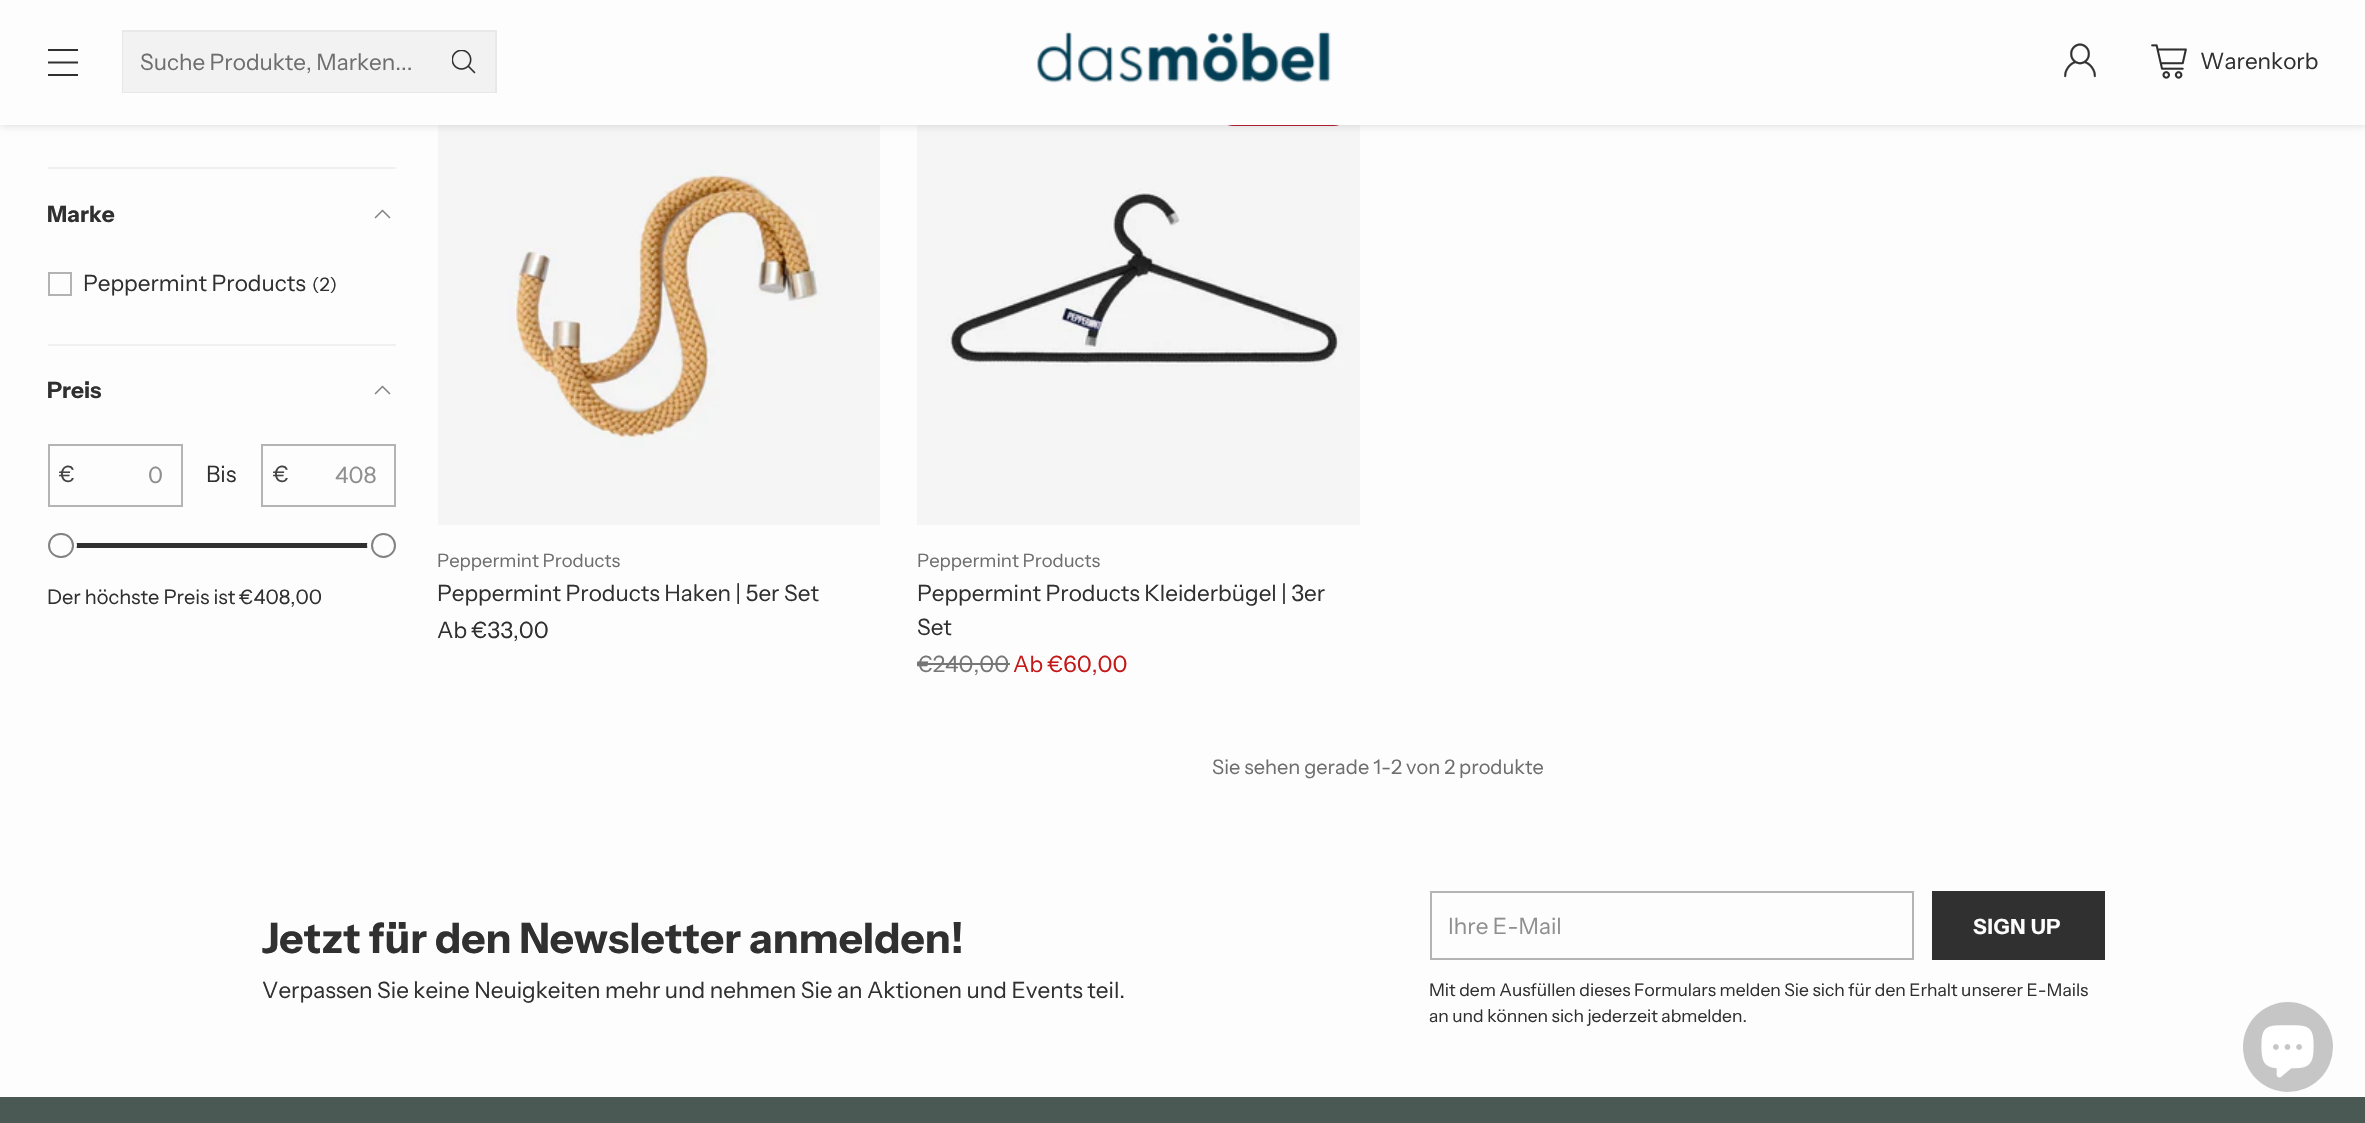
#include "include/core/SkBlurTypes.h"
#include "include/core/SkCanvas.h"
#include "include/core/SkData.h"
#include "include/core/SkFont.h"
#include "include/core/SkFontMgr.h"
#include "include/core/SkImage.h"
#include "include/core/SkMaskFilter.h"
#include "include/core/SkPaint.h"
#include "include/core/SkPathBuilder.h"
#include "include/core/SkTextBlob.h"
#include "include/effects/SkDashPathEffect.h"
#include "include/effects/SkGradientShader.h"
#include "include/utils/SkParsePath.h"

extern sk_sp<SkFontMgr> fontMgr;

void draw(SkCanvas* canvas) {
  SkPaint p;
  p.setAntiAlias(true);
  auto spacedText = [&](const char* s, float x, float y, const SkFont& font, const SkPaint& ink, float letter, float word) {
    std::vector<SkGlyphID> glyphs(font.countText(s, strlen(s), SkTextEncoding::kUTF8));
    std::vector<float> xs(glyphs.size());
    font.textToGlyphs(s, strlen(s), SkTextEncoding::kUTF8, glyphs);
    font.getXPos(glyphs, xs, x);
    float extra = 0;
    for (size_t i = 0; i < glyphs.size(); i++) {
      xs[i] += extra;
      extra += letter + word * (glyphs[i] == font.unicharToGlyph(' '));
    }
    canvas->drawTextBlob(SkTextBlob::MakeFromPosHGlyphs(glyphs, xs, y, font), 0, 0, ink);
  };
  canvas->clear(SkColorSetRGB(253, 253, 253));
  canvas->drawImageRect(SkImages::DeferredFromEncodedData(SkData::MakeFromFileName("images/5.png")), SkRect::MakeLTRB(438, 125, 880, 525), SkSamplingOptions());
  canvas->drawImageRect(SkImages::DeferredFromEncodedData(SkData::MakeFromFileName("images/6.png")), SkRect::MakeLTRB(917, 125, 1360, 525), SkSamplingOptions());
  p.setColor(SkColorSetRGB(183, 31, 51));
  canvas->drawRoundRect(SkRect::MakeLTRB(1218, 95, 1349, 126), 15.5f, 15.5f, p);
  p.setColor(SkColorSetARGB(38, 0, 0, 0));
  p.setMaskFilter(SkMaskFilter::MakeBlur(kNormal_SkBlurStyle, 4));
  canvas->drawRect(SkRect::MakeLTRB(0, 0, 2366, 125), p);
  p.setMaskFilter(nullptr);
  p.setColor(SkColorSetRGB(253, 253, 253));
  canvas->drawRect(SkRect::MakeLTRB(0, 0, 2365, 125), p);
  p.setStyle(SkPaint::kStroke_Style);
  p.setStrokeWidth(2.2f);
  p.setColor(SkColorSetRGB(48, 48, 48));
  canvas->drawPath(SkPathBuilder().moveTo(48, 62.5f).lineTo(78, 62.5f).moveTo(48, 50).lineTo(78, 50).moveTo(48, 75).lineTo(78, 75).detach(), p);
  p.setStrokeWidth(2);
  p.setColor(SkColorSetRGB(232, 233, 230));
  canvas->drawRect(SkRect::MakeLTRB(123, 31, 496, 92), p);
  p.setStyle(SkPaint::kFill_Style);
  p.setColor(SkColorSetRGB(242, 242, 242));
  canvas->drawRect(SkRect::MakeLTRB(123, 32, 495, 92), p);
  canvas->drawImageRect(SkImages::DeferredFromEncodedData(SkData::MakeFromFileName("images/1.png")), SkRect::MakeLTRB(452, 50, 476, 74), SkSamplingOptions());
  canvas->drawImageRect(SkImages::DeferredFromEncodedData(SkData::MakeFromFileName("images/2.png")), SkRect::MakeLTRB(1037, 31, 1331, 83), SkSamplingOptions());
  canvas->drawImageRect(SkImages::DeferredFromEncodedData(SkData::MakeFromFileName("images/3.png")), SkRect::MakeLTRB(2064, 43, 2096, 78), SkSamplingOptions());
  canvas->drawImageRect(SkImages::DeferredFromEncodedData(SkData::MakeFromFileName("images/4.png")), SkRect::MakeLTRB(2151, 44, 2187, 79), SkSamplingOptions());
  p.setColor(SkColorSetRGB(240, 241, 239));
  canvas->drawRect(SkRect::MakeLTRB(48, 167, 396, 169), p);
  p.setStyle(SkPaint::kStroke_Style);
  p.setStrokeWidth(1.5f);
  p.setColor(SkColorSetRGB(130, 130, 130));
  canvas->drawPath(SkPathBuilder().moveTo(375, 218).lineTo(382.5f, 210.5f).lineTo(390, 218).detach(), p);
  p.setStrokeWidth(2);
  p.setColor(SkColorSetRGB(179, 179, 179));
  canvas->drawRect(SkRect::MakeLTRB(49, 273, 71, 295), p);
  p.setStyle(SkPaint::kFill_Style);
  p.setColor(SkColorSetRGB(240, 241, 239));
  canvas->drawRect(SkRect::MakeLTRB(48, 344, 396, 346), p);
  p.setStyle(SkPaint::kStroke_Style);
  p.setStrokeWidth(1.5f);
  p.setColor(SkColorSetRGB(130, 130, 130));
  canvas->drawPath(SkPathBuilder().moveTo(375, 394).lineTo(382.5f, 386.5f).lineTo(390, 394).detach(), p);
  p.setStrokeWidth(2);
  p.setColor(SkColorSetRGB(180, 180, 180));
  canvas->drawRect(SkRect::MakeLTRB(49, 445, 182, 506), p);
  canvas->drawRect(SkRect::MakeLTRB(262, 445, 395, 506), p);
  p.setStyle(SkPaint::kFill_Style);
  p.setColor(SkColorSetRGB(48, 48, 48));
  canvas->drawRect(SkRect::MakeLTRB(76, 543, 368, 548), p);
  p.setColor(SkColorSetRGB(253, 253, 253));
  canvas->drawOval(SkRect::MakeLTRB(45, 532, 77, 558), p);
  p.setStyle(SkPaint::kStroke_Style);
  p.setColor(SkColorSetRGB(130, 130, 130));
  canvas->drawRoundRect(SkRect::MakeLTRB(49, 534, 73, 557), 11.5f, 11.5f, p);
  p.setStyle(SkPaint::kFill_Style);
  p.setColor(SkColorSetRGB(253, 253, 253));
  canvas->drawOval(SkRect::MakeLTRB(367, 532, 399, 558), p);
  p.setStyle(SkPaint::kStroke_Style);
  p.setColor(SkColorSetRGB(130, 130, 130));
  canvas->drawCircle(383.5f, 545.5f, 11.5f, p);
  p.setStyle(SkPaint::kFill_Style);
  p.setColor(SkColorSetRGB(118, 118, 118));
  canvas->drawRect(SkRect::MakeLTRB(917, 663, 1010, 665), p);
  p.setStyle(SkPaint::kStroke_Style);
  p.setColor(SkColorSetRGB(180, 180, 180));
  canvas->drawRect(SkRect::MakeLTRB(1431, 892, 1913, 959), p);
  p.setStyle(SkPaint::kFill_Style);
  p.setColor(SkColorSetRGB(48, 48, 48));
  canvas->drawRect(SkRect::MakeLTRB(1932, 891, 2105, 960), p);
  p.setColor(SkColorSetRGB(74, 89, 84));
  canvas->drawRect(SkRect::MakeLTRB(0, 1097, 2365, 1123), p);
  p.setColor(SkColorSetRGB(198, 198, 198));
  canvas->drawCircle(2288, 1047, 45, p);
  canvas->drawImageRect(SkImages::DeferredFromEncodedData(SkData::MakeFromFileName("images/7.png")), SkRect::MakeLTRB(2261, 1025, 2314, 1078), SkSamplingOptions());
  SkFont font1(fontMgr->matchFamilyStyle("Instrument Sans", SkFontStyle::Normal()), 22.5f);
  font1.setSubpixel(true);
  p.setColor(SkColorSetRGB(110, 110, 110));
  canvas->drawString("Suche Produkte, Marken...", 140, 70, font1, p);
  p.setColor(SkColorSetRGB(48, 48, 48));
  canvas->drawString("Warenkorb", 2200, 69, font1, p);
  SkFont font2(fontMgr->matchFamilyStyle("Instrument Sans", SkFontStyle::Bold()), 22.5f);
  font2.setSubpixel(true);
  canvas->drawString("Marke", 47, 222, font2, p);
  canvas->drawString("Peppermint Products", 83, 291, font1, p);
  SkFont font3(fontMgr->matchFamilyStyle("Instrument Sans", SkFontStyle::Normal()), 18.5f);
  font3.setSubpixel(true);
  canvas->drawString("(2)", 312, 291, font3, p);
  canvas->drawString("Preis", 47, 398, font2, p);
  p.setColor(SkColorSetRGB(68, 68, 68));
  canvas->drawString("€", 59, 482, font1, p);
  p.setColor(SkColorSetRGB(143, 143, 143));
  canvas->drawString("0", 148, 483, font1, p);
  p.setColor(SkColorSetRGB(48, 48, 48));
  canvas->drawString("Bis", 206, 482, font1, p);
  p.setColor(SkColorSetRGB(68, 68, 68));
  canvas->drawString("€", 273, 482, font1, p);
  p.setColor(SkColorSetRGB(143, 143, 143));
  canvas->drawString("408", 335, 483, font1, p);
  SkFont font4(fontMgr->matchFamilyStyle("Instrument Sans", SkFontStyle::Normal()), 20);
  font4.setSubpixel(true);
  p.setColor(SkColorSetRGB(48, 48, 48));
  canvas->drawString("Der höchste Preis ist €408,00", 47, 604, font4, p);
  p.setColor(SkColorSetRGB(110, 110, 110));
  canvas->drawString("Peppermint Products", 437, 567, font3, p);
  p.setColor(SkColorSetRGB(48, 48, 48));
  canvas->drawString("Peppermint Products Haken | 5er Set", 437, 601, font1, p);
  canvas->drawString("Ab €33,00", 437, 638, font1, p);
  p.setColor(SkColorSetRGB(110, 110, 110));
  canvas->drawString("Peppermint Products", 917, 567, font3, p);
  p.setColor(SkColorSetRGB(48, 48, 48));
  canvas->drawString("Peppermint Products Kleiderbügel | 3er", 917, 601, font1, p);
  canvas->drawString("Set", 917, 635, font1, p);
  p.setColor(SkColorSetRGB(118, 118, 118));
  canvas->drawString("€240,00", 917, 672, font1, p);
  p.setColor(SkColorSetRGB(195, 24, 24));
  canvas->drawString("Ab €60,00", 1013, 672, font1, p);
  p.setColor(SkColorSetRGB(110, 110, 110));
  canvas->drawString("Sie sehen gerade 1-2 von 2 produkte", 1212, 774, font4, p);
  SkFont font5(fontMgr->matchFamilyStyle("Instrument Sans", SkFontStyle::Bold()), 42);
  font5.setSubpixel(true);
  p.setColor(SkColorSetRGB(48, 48, 48));
  canvas->drawString("Jetzt für den Newsletter anmelden!", 262, 953, font5, p);
  canvas->drawString("Verpassen Sie keine Neuigkeiten mehr und nehmen Sie an Aktionen und Events teil.", 262, 998, font1, p);
  p.setColor(SkColorSetRGB(143, 143, 143));
  canvas->drawString("Ihre E-Mail", 1448, 934, font1, p);
  SkFont font6(fontMgr->matchFamilyStyle("Instrument Sans", SkFontStyle::Bold()), 21);
  font6.setSubpixel(true);
  p.setColor(SkColorSetRGB(253, 253, 253));
  spacedText("SIGN UP", 1973, 934, font6, p, 0.75f, 0);
  SkFont font7(fontMgr->matchFamilyStyle("Instrument Sans", SkFontStyle::Normal()), 17.5f);
  font7.setSubpixel(true);
  p.setColor(SkColorSetRGB(48, 48, 48));
  canvas->drawString("Mit dem Ausfüllen dieses Formulars melden Sie sich für den Erhalt unserer E-Mails", 1429, 996, font7, p);
  canvas->drawString("an und können sich jederzeit abmelden.", 1429, 1022, font7, p);
}
